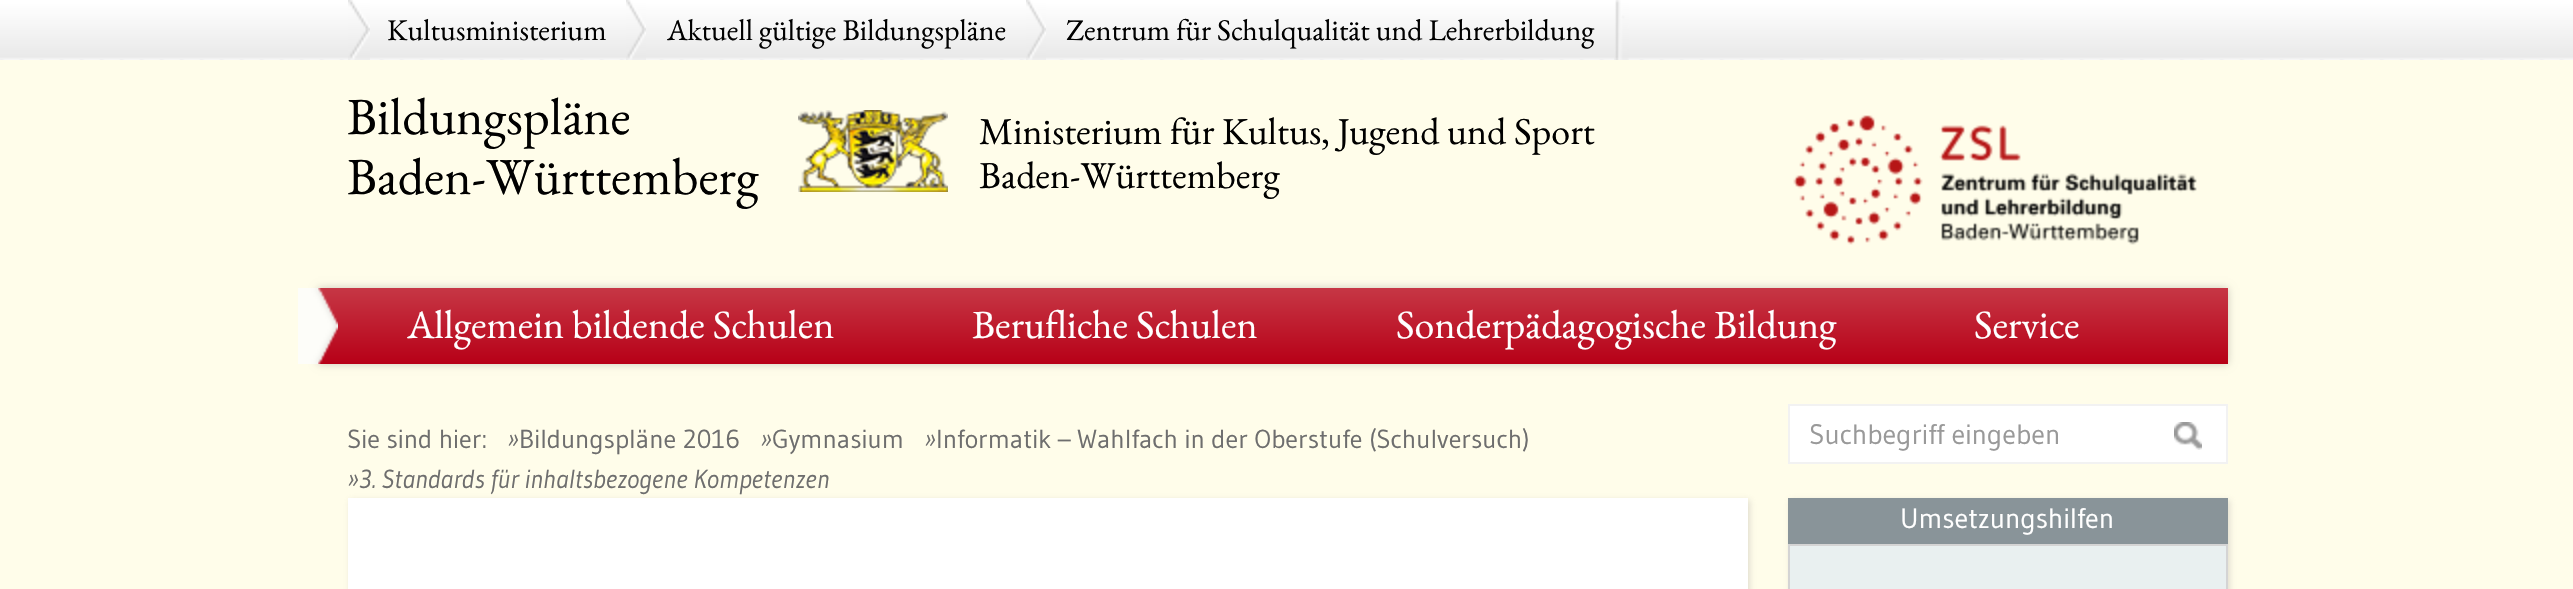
#include "include/core/SkBlurTypes.h"
#include "include/core/SkCanvas.h"
#include "include/core/SkData.h"
#include "include/core/SkFont.h"
#include "include/core/SkFontMgr.h"
#include "include/core/SkImage.h"
#include "include/core/SkMaskFilter.h"
#include "include/core/SkPaint.h"
#include "include/core/SkPathBuilder.h"
#include "include/core/SkTextBlob.h"
#include "include/effects/SkDashPathEffect.h"
#include "include/effects/SkGradientShader.h"
#include "include/utils/SkParsePath.h"

extern sk_sp<SkFontMgr> fontMgr;

void draw(SkCanvas* canvas) {
  SkPaint p;
  p.setAntiAlias(true);
  canvas->clear(SkColorSetRGB(255, 253, 234));
  canvas->drawImageRect(SkImages::DeferredFromEncodedData(SkData::MakeFromFileName("images/1.png")), SkRect::MakeLTRB(0, 0, 2573, 60), SkSamplingOptions());
  canvas->drawImageRect(SkImages::DeferredFromEncodedData(SkData::MakeFromFileName("images/2.png")), SkRect::MakeLTRB(1614, 0, 1629, 60), SkSamplingOptions());
  canvas->drawImageRect(SkImages::DeferredFromEncodedData(SkData::MakeFromFileName("images/3.png")), SkRect::MakeLTRB(348, 0, 370, 60), SkSamplingOptions());
  canvas->drawImageRect(SkImages::DeferredFromEncodedData(SkData::MakeFromFileName("images/4.png")), SkRect::MakeLTRB(626, 0, 646, 60), SkSamplingOptions());
  canvas->drawImageRect(SkImages::DeferredFromEncodedData(SkData::MakeFromFileName("images/4.png")), SkRect::MakeLTRB(1026, 0, 1046, 60), SkSamplingOptions());
  canvas->drawImageRect(SkImages::DeferredFromEncodedData(SkData::MakeFromFileName("images/5.png")), SkRect::MakeLTRB(798, 110, 948, 192), SkSamplingOptions());
  canvas->drawImageRect(SkImages::DeferredFromEncodedData(SkData::MakeFromFileName("images/6.png")), SkRect::MakeLTRB(1793, 115, 2197, 245), SkSamplingOptions());
  p.setColor(SkColorSetARGB(51, 0, 0, 0));
  p.setMaskFilter(SkMaskFilter::MakeBlur(kNormal_SkBlurStyle, 4));
  canvas->drawRect(SkRect::MakeLTRB(318, 288, 2228, 364), p);
  p.setMaskFilter(nullptr);
  {
    const SkColor colors[] = {SkColorSetRGB(183, 0, 23), SkColorSetRGB(198, 55, 69)};
    const float stops[] = {0, 1};
    const SkPoint ends[] = {{318, 364}, {318, 288}};
    p.setShader(SkGradientShader::MakeLinear(ends, colors, stops, 2, SkTileMode::kClamp));
    p.setAlpha(255);
  }
  canvas->drawRect(SkRect::MakeLTRB(318, 288, 2228, 364), p);
  canvas->drawImageRect(SkImages::DeferredFromEncodedData(SkData::MakeFromFileName("images/7.png")), SkRect::MakeLTRB(298, 288, 338, 364), SkSamplingOptions());
  p.setShader(nullptr);
  p.setColor(SK_ColorWHITE);
  canvas->drawRect(SkRect::MakeLTRB(1789, 405, 2227, 463), p);
  p.setStyle(SkPaint::kStroke_Style);
  p.setStrokeWidth(2);
  p.setColor(SkColorSetRGB(242, 242, 242));
  canvas->drawRect(SkRect::MakeLTRB(1789, 405, 2227, 463), p);
  canvas->drawImageRect(SkImages::DeferredFromEncodedData(SkData::MakeFromFileName("images/8.png")), SkRect::MakeLTRB(2174, 422, 2202, 450), SkSamplingOptions());
  p.setStyle(SkPaint::kFill_Style);
  p.setColor(SkColorSetARGB(77, 157, 150, 147));
  p.setMaskFilter(SkMaskFilter::MakeBlur(kNormal_SkBlurStyle, 3));
  canvas->drawRect(SkRect::MakeLTRB(350, 500, 1750, 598), p);
  p.setMaskFilter(nullptr);
  p.setColor(SK_ColorWHITE);
  canvas->drawRect(SkRect::MakeLTRB(348, 498, 1748, 589), p);
  p.setColor(SkColorSetARGB(77, 157, 150, 147));
  p.setMaskFilter(SkMaskFilter::MakeBlur(kNormal_SkBlurStyle, 3));
  canvas->drawRect(SkRect::MakeLTRB(1790, 500, 2230, 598), p);
  p.setMaskFilter(nullptr);
  p.setColor(SkColorSetRGB(137, 148, 153));
  canvas->drawRect(SkRect::MakeLTRB(1788, 498, 2228, 544), p);
  p.setColor(SkColorSetRGB(233, 240, 240));
  canvas->drawRect(SkRect::MakeLTRB(1789, 545, 2227, 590), p);
  p.setStyle(SkPaint::kStroke_Style);
  p.setColor(SkColorSetRGB(212, 212, 212));
  canvas->drawRect(SkRect::MakeLTRB(1789, 545, 2227, 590), p);
  SkFont font1(fontMgr->matchFamilyStyle("EB Garamond", SkFontStyle::Normal()), 30);
  font1.setSubpixel(true);
  p.setStyle(SkPaint::kFill_Style);
  p.setColor(SK_ColorBLACK);
  canvas->drawString("Kultusministerium", 387, 40, font1, p);
  canvas->drawString("Aktuell gültige Bildungspläne", 667, 40, font1, p);
  canvas->drawString("Zentrum für Schulqualität und Lehrerbildung", 1066, 40, font1, p);
  SkFont font2(fontMgr->matchFamilyStyle("EB Garamond", SkFontStyle::Normal()), 52);
  font2.setSubpixel(true);
  canvas->drawString("Bildungspläne", 347, 134, font2, p);
  canvas->drawString("Baden-Württemberg", 347, 194, font2, p);
  SkFont font3(fontMgr->matchFamilyStyle("EB Garamond", SkFontStyle::Normal()), 38);
  font3.setSubpixel(true);
  canvas->drawString("Ministerium für Kultus, Jugend und Sport", 979, 144, font3, p);
  canvas->drawString("Baden-Württemberg", 979, 188, font3, p);
  SkFont font4(fontMgr->matchFamilyStyle("EB Garamond", SkFontStyle::Normal()), 40);
  font4.setSubpixel(true);
  p.setColor(SK_ColorWHITE);
  canvas->drawString("Allgemein bildende Schulen", 407, 338, font4, p);
  canvas->drawString("Berufliche Schulen", 972, 338, font4, p);
  canvas->drawString("Sonderpädagogische Bildung", 1396, 338, font4, p);
  canvas->drawString("Service", 1974, 338, font4, p);
  SkFont font5(fontMgr->matchFamilyStyle("Gudea", SkFontStyle::Normal()), 26);
  font5.setSubpixel(true);
  p.setColor(SkColorSetRGB(110, 110, 110));
  canvas->drawString("Sie sind hier:", 347, 448, font5, p);
  SkFont font6(fontMgr->matchFamilyStyle("Gudea", SkFontStyle::Italic()), 26);
  font6.setSubpixel(true);
  canvas->drawString("»", 507, 448, font6, p);
  canvas->drawString("Bildungspläne 2016", 519, 448, font5, p);
  canvas->drawString("»", 760, 448, font6, p);
  canvas->drawString("Gymnasium", 772, 448, font5, p);
  canvas->drawString("»", 924, 448, font6, p);
  canvas->drawString("Informatik – Wahlfach in der Oberstufe (Schulversuch)", 936, 448, font5, p);
  canvas->drawString("»3. Standards für inhaltsbezogene Kompetenzen", 347, 488, font6, p);
  SkFont font7(fontMgr->matchFamilyStyle("Gudea", SkFontStyle::Normal()), 28);
  font7.setSubpixel(true);
  p.setColor(SkColorSetRGB(153, 153, 153));
  canvas->drawString("Suchbegriff eingeben", 1809, 444, font7, p);
  p.setColor(SK_ColorWHITE);
  canvas->drawString("Umsetzungshilfen", 1900, 528, font7, p);
}
